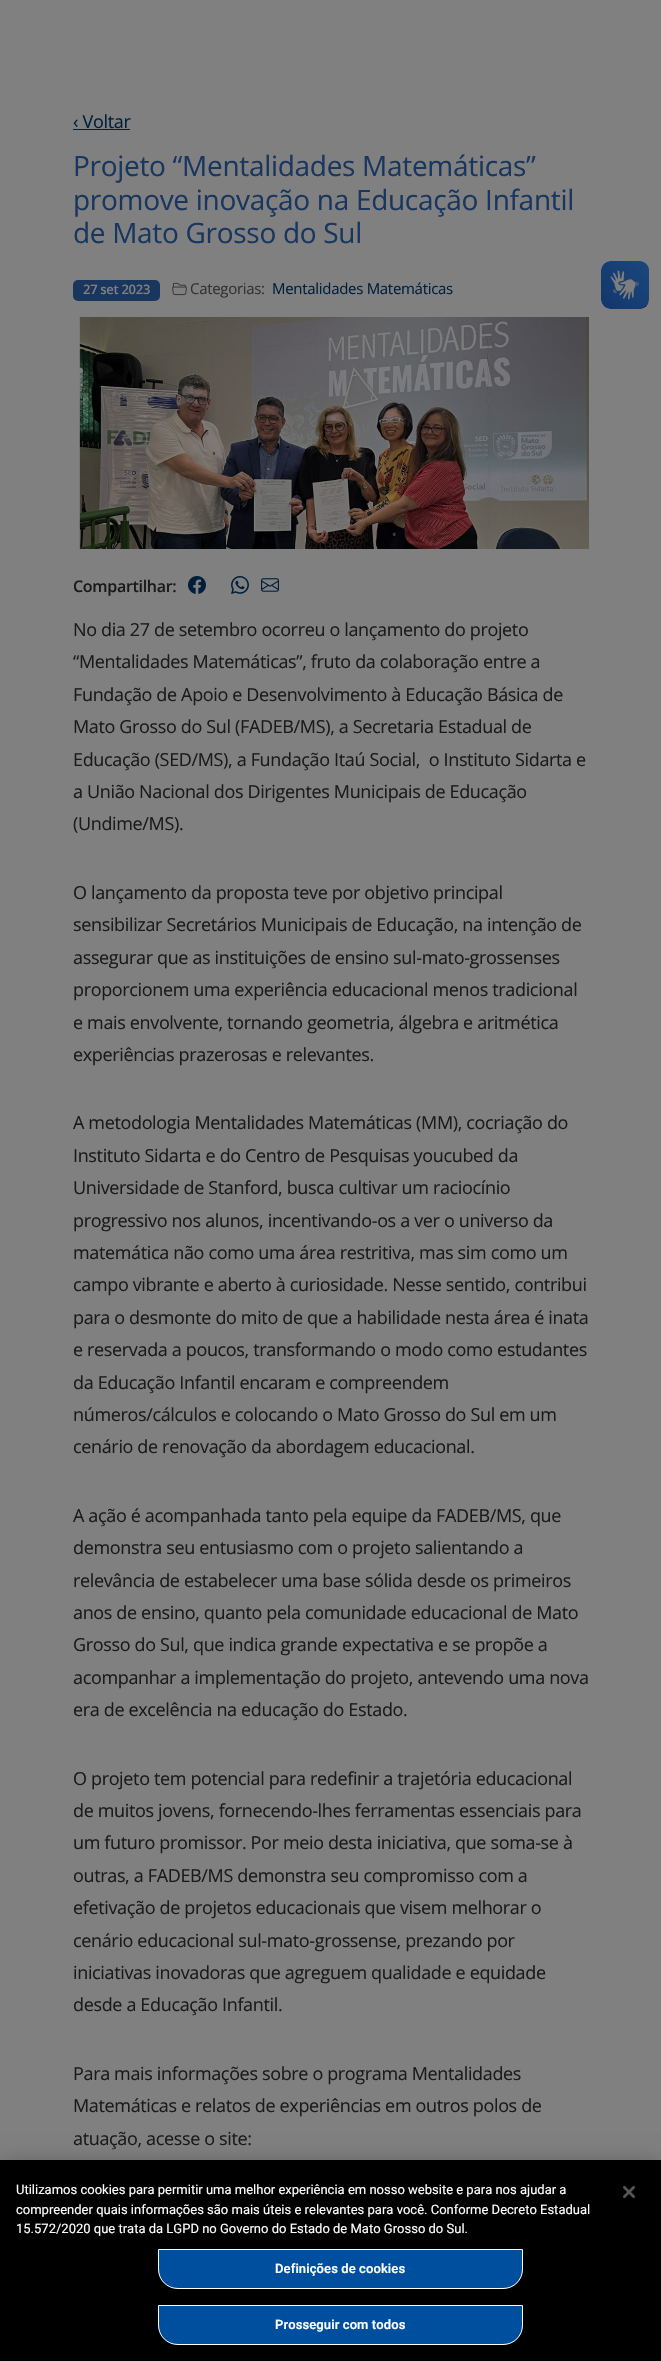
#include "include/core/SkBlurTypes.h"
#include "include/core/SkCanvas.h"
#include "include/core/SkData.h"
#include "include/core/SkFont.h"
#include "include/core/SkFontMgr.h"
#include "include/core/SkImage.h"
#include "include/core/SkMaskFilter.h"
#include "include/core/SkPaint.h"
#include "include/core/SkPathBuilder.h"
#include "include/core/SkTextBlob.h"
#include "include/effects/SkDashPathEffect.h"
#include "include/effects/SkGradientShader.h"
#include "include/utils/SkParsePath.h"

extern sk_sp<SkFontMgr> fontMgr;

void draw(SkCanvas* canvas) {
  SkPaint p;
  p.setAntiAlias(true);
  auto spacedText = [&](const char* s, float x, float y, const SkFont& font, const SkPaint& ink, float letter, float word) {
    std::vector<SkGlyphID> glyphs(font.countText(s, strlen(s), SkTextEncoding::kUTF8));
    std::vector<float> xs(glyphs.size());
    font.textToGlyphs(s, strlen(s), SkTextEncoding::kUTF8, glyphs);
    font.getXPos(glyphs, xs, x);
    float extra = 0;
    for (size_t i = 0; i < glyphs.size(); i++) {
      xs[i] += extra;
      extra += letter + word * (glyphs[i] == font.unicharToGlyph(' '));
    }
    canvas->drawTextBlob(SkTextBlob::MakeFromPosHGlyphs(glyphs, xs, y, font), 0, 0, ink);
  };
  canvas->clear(SkColorSetRGB(128, 128, 128));
  p.setColor(SkColorSetRGB(0, 31, 59));
  canvas->drawRect(SkRect::MakeLTRB(73, 129, 130, 130), p);
  p.setColor(SkColorSetRGB(25, 54, 95));
  canvas->drawRoundRect(SkRect::MakeLTRB(73, 280, 160, 301), 5, 5, p);
  canvas->drawImageRect(SkImages::DeferredFromEncodedData(SkData::MakeFromFileName("images/1.png")), SkRect::MakeLTRB(172, 282, 187, 296), SkSamplingOptions());
  canvas->drawImageRect(SkImages::DeferredFromEncodedData(SkData::MakeFromFileName("images/2.png")), SkRect::MakeLTRB(79, 317, 589, 549), SkSamplingOptions());
  canvas->drawImageRect(SkImages::DeferredFromEncodedData(SkData::MakeFromFileName("images/3.png")), SkRect::MakeLTRB(188, 576, 206, 594), SkSamplingOptions());
  canvas->drawImageRect(SkImages::DeferredFromEncodedData(SkData::MakeFromFileName("images/4.png")), SkRect::MakeLTRB(231, 576, 249, 594), SkSamplingOptions());
  canvas->drawImageRect(SkImages::DeferredFromEncodedData(SkData::MakeFromFileName("images/5.png")), SkRect::MakeLTRB(261, 578, 279, 592), SkSamplingOptions());
  canvas->drawImageRect(SkImages::DeferredFromEncodedData(SkData::MakeFromFileName("images/6.png")), SkRect::MakeLTRB(601, 261, 649, 309), SkSamplingOptions());
  canvas->drawImageRect(SkImages::DeferredFromEncodedData(SkData::MakeFromFileName("images/7.png")), SkRect::MakeLTRB(601, 261, 649, 309), SkSamplingOptions());
  p.setColor(SkColorSetARGB(51, 0, 0, 0));
  p.setMaskFilter(SkMaskFilter::MakeBlur(kNormal_SkBlurStyle, 9));
  canvas->drawRect(SkRect::MakeLTRB(0, 2160, 661, 2361), p);
  p.setMaskFilter(nullptr);
  p.setColor(SK_ColorBLACK);
  canvas->drawRect(SkRect::MakeLTRB(0, 2160, 661, 2361), p);
  p.setColor(SkColorSetRGB(0, 79, 159));
  canvas->drawPath(SkPathBuilder().moveTo(158.5f, 2249.5f).lineTo(522.5f, 2249.5f).lineTo(522.5f, 2269).cubicTo(522.5f, 2280, 514, 2288.5f, 503, 2288.5f).lineTo(178, 2288.5f).cubicTo(167, 2288.5f, 158.5f, 2280, 158.5f, 2269).close().detach(), p);
  p.setStyle(SkPaint::kStroke_Style);
  p.setStrokeWidth(1);
  p.setColor(SK_ColorWHITE);
  canvas->drawPath(SkPathBuilder().moveTo(158.5f, 2249.5f).lineTo(522.5f, 2249.5f).lineTo(522.5f, 2269).cubicTo(522.5f, 2280, 514, 2288.5f, 503, 2288.5f).lineTo(178, 2288.5f).cubicTo(167, 2288.5f, 158.5f, 2280, 158.5f, 2269).close().detach(), p);
  p.setStyle(SkPaint::kFill_Style);
  p.setColor(SkColorSetRGB(0, 79, 159));
  canvas->drawPath(SkPathBuilder().moveTo(158.5f, 2305.5f).lineTo(522.5f, 2305.5f).lineTo(522.5f, 2325).cubicTo(522.5f, 2336, 514, 2344.5f, 503, 2344.5f).lineTo(178, 2344.5f).cubicTo(167, 2344.5f, 158.5f, 2336, 158.5f, 2325).close().detach(), p);
  p.setStyle(SkPaint::kStroke_Style);
  p.setColor(SK_ColorWHITE);
  canvas->drawPath(SkPathBuilder().moveTo(158.5f, 2305.5f).lineTo(522.5f, 2305.5f).lineTo(522.5f, 2325).cubicTo(522.5f, 2336, 514, 2344.5f, 503, 2344.5f).lineTo(178, 2344.5f).cubicTo(167, 2344.5f, 158.5f, 2336, 158.5f, 2325).close().detach(), p);
  canvas->drawImageRect(SkImages::DeferredFromEncodedData(SkData::MakeFromFileName("images/8.png")), SkRect::MakeLTRB(623, 2186, 635, 2198), SkSamplingOptions());
  SkFont font1(fontMgr->matchFamilyStyle("Open Sans", SkFontStyle::Normal()), 18);
  font1.setSubpixel(true);
  p.setStyle(SkPaint::kFill_Style);
  p.setColor(SkColorSetRGB(0, 31, 59));
  spacedText("‹ Voltar", 73, 128, font1, p, -0.3f, 0);
  SkFont font2(fontMgr->matchFamilyStyle("Open Sans", SkFontStyle::Normal()), 28);
  font2.setSubpixel(true);
  p.setColor(SkColorSetRGB(25, 54, 95));
  spacedText("Projeto “Mentalidades Matemáticas”", 73, 176, font2, p, -0.3f, 0);
  spacedText("promove inovação na Educação Infantil", 73, 210, font2, p, -0.3f, 0);
  spacedText("de Mato Grosso do Sul", 73, 243, font2, p, -0.3f, 0);
  SkFont font3(fontMgr->matchFamilyStyle("Open Sans", SkFontStyle(600, SkFontStyle::kNormal_Width, SkFontStyle::kUpright_Slant)), 13);
  font3.setSubpixel(true);
  p.setColor(SkColorSetRGB(128, 128, 128));
  spacedText("27 set 2023", 83, 294, font3, p, -0.3f, 0);
  SkFont font4(fontMgr->matchFamilyStyle("Open Sans", SkFontStyle::Normal()), 15);
  font4.setSubpixel(true);
  p.setColor(SkColorSetRGB(50, 50, 50));
  spacedText("Categorias:", 190, 294, font4, p, -0.3f, 0);
  p.setColor(SkColorSetRGB(0, 31, 59));
  spacedText("Mentalidades Matemáticas", 272, 294, font4, p, -0.3f, 0);
  SkFont font5(fontMgr->matchFamilyStyle("Open Sans", SkFontStyle(600, SkFontStyle::kNormal_Width, SkFontStyle::kUpright_Slant)), 16);
  font5.setSubpixel(true);
  p.setColor(SkColorSetRGB(26, 26, 26));
  spacedText("Compartilhar:", 73, 592, font5, p, -0.3f, 0);
  spacedText("No dia 27 de setembro ocorreu o lançamento do projeto", 73, 636, font1, p, -0.35f, 0);
  spacedText("“Mentalidades Matemáticas”, fruto da colaboração entre a", 73, 668, font1, p, -0.35f, 0);
  spacedText("Fundação de Apoio e Desenvolvimento à Educação Básica de", 73, 701, font1, p, -0.35f, 0);
  spacedText("Mato Grosso do Sul (FADEB/MS), a Secretaria Estadual de", 73, 733, font1, p, -0.35f, 0);
  spacedText("Educação (SED/MS), a Fundação Itaú Social,  o Instituto Sidarta e", 73, 766, font1, p, -0.35f, 0);
  spacedText("a União Nacional dos Dirigentes Municipais de Educação", 73, 798, font1, p, -0.35f, 0);
  spacedText("(Undime/MS).", 73, 830, font1, p, -0.35f, 0);
  spacedText("O lançamento da proposta teve por objetivo principal", 73, 899, font1, p, -0.35f, 0);
  spacedText("sensibilizar Secretários Municipais de Educação, na intenção de", 73, 931, font1, p, -0.35f, 0);
  spacedText("assegurar que as instituições de ensino sul-mato-grossenses", 73, 964, font1, p, -0.35f, 0);
  spacedText("proporcionem uma experiência educacional menos tradicional", 73, 996, font1, p, -0.35f, 0);
  spacedText("e mais envolvente, tornando geometria, álgebra e aritmética", 73, 1029, font1, p, -0.35f, 0);
  spacedText("experiências prazerosas e relevantes.", 73, 1061, font1, p, -0.35f, 0);
  spacedText("A metodologia Mentalidades Matemáticas (MM), cocriação do", 73, 1129, font1, p, -0.35f, 0);
  spacedText("Instituto Sidarta e do Centro de Pesquisas youcubed da", 73, 1162, font1, p, -0.35f, 0);
  spacedText("Universidade de Stanford, busca cultivar um raciocínio", 73, 1194, font1, p, -0.35f, 0);
  spacedText("progressivo nos alunos, incentivando-os a ver o universo da", 73, 1227, font1, p, -0.35f, 0);
  spacedText("matemática não como uma área restritiva, mas sim como um", 73, 1259, font1, p, -0.35f, 0);
  spacedText("campo vibrante e aberto à curiosidade. Nesse sentido, contribui", 73, 1291, font1, p, -0.35f, 0);
  spacedText("para o desmonte do mito de que a habilidade nesta área é inata", 73, 1324, font1, p, -0.35f, 0);
  spacedText("e reservada a poucos, transformando o modo como estudantes", 73, 1356, font1, p, -0.35f, 0);
  spacedText("da Educação Infantil encaram e compreendem", 73, 1389, font1, p, -0.35f, 0);
  spacedText("números/cálculos e colocando o Mato Grosso do Sul em um", 73, 1421, font1, p, -0.35f, 0);
  spacedText("cenário de renovação da abordagem educacional.", 73, 1453, font1, p, -0.35f, 0);
  spacedText("A ação é acompanhada tanto pela equipe da FADEB/MS, que", 73, 1522, font1, p, -0.35f, 0);
  spacedText("demonstra seu entusiasmo com o projeto salientando a", 73, 1554, font1, p, -0.35f, 0);
  spacedText("relevância de estabelecer uma base sólida desde os primeiros", 73, 1587, font1, p, -0.35f, 0);
  spacedText("anos de ensino, quanto pela comunidade educacional de Mato", 73, 1619, font1, p, -0.35f, 0);
  spacedText("Grosso do Sul, que indica grande expectativa e se propõe a", 73, 1651, font1, p, -0.35f, 0);
  spacedText("acompanhar a implementação do projeto, antevendo uma nova", 73, 1684, font1, p, -0.35f, 0);
  spacedText("era de excelência na educação do Estado.", 73, 1716, font1, p, -0.35f, 0);
  spacedText("O projeto tem potencial para redefinir a trajetória educacional", 73, 1785, font1, p, -0.35f, 0);
  spacedText("de muitos jovens, fornecendo-lhes ferramentas essenciais para", 73, 1817, font1, p, -0.35f, 0);
  spacedText("um futuro promissor. Por meio desta iniciativa, que soma-se à", 73, 1849, font1, p, -0.35f, 0);
  spacedText("outras, a FADEB/MS demonstra seu compromisso com a", 73, 1882, font1, p, -0.35f, 0);
  spacedText("efetivação de projetos educacionais que visem melhorar o", 73, 1914, font1, p, -0.35f, 0);
  spacedText("cenário educacional sul-mato-grossense, prezando por", 73, 1947, font1, p, -0.35f, 0);
  spacedText("iniciativas inovadoras que agreguem qualidade e equidade", 73, 1979, font1, p, -0.35f, 0);
  spacedText("desde a Educação Infantil.", 73, 2011, font1, p, -0.35f, 0);
  spacedText("Para mais informações sobre o programa Mentalidades", 73, 2080, font1, p, -0.35f, 0);
  spacedText("Matemáticas e relatos de experiências em outros polos de", 73, 2112, font1, p, -0.35f, 0);
  spacedText("atuação, acesse o site:", 73, 2145, font1, p, -0.35f, 0);
  SkFont font6(fontMgr->matchFamilyStyle("Roboto", SkFontStyle::Normal()), 13);
  font6.setSubpixel(true);
  p.setColor(SK_ColorWHITE);
  canvas->drawString("Utilizamos cookies para permitir uma melhor experiência em nosso website e para nos ajudar a", 16, 2194, font6, p);
  canvas->drawString("compreender quais informações são mais úteis e relevantes para você. Conforme Decreto Estadual", 16, 2214, font6, p);
  canvas->drawString("15.572/2020 que trata da LGPD no Governo do Estado de Mato Grosso do Sul.", 16, 2233, font6, p);
  SkFont font7(fontMgr->matchFamilyStyle("Roboto", SkFontStyle(600, SkFontStyle::kNormal_Width, SkFontStyle::kUpright_Slant)), 13);
  font7.setSubpixel(true);
  spacedText("Definições de cookies", 275, 2273, font7, p, 0.1f, 0);
  spacedText("Prosseguir com todos", 275, 2329, font7, p, 0.1f, 0);
}
